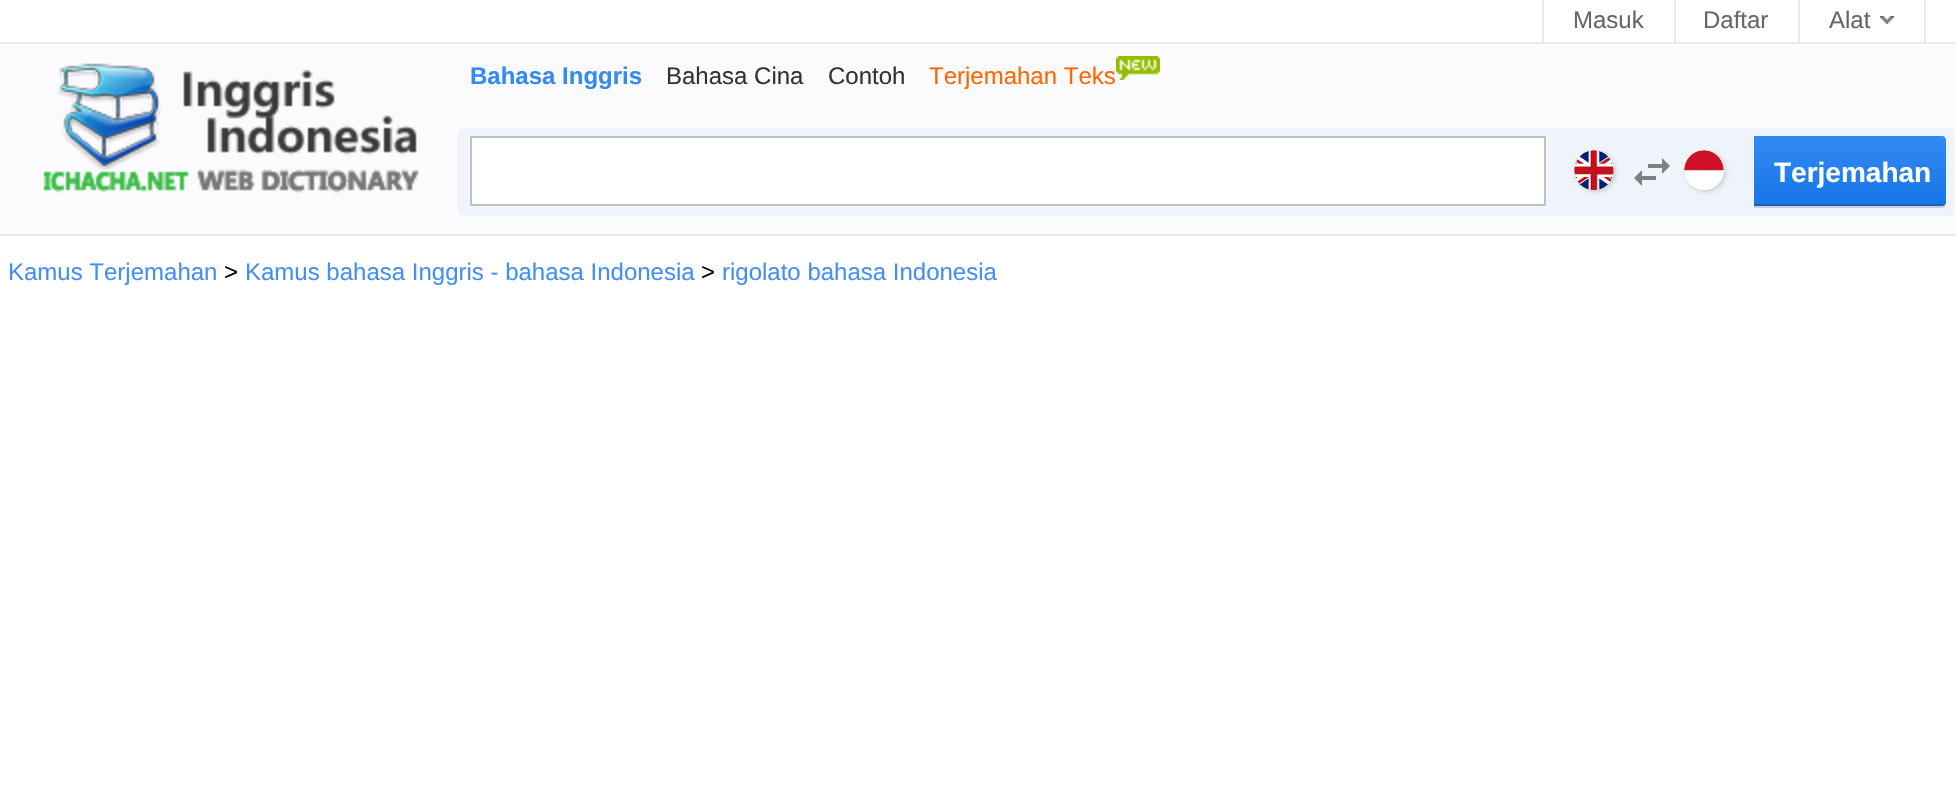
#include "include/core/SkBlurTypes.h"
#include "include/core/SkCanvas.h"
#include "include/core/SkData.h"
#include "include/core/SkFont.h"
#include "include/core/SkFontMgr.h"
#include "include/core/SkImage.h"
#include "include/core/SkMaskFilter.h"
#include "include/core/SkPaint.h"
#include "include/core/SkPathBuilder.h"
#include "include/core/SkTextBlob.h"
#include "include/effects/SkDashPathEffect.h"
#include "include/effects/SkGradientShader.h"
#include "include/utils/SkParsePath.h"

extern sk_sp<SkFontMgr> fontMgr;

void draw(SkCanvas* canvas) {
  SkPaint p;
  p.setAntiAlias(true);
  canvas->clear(SK_ColorWHITE);
  p.setColor(SkColorSetRGB(235, 235, 235));
  canvas->drawRect(SkRect::MakeLTRB(0, 42, 1956, 44), p);
  canvas->drawRect(SkRect::MakeLTRB(1542, 0, 1544, 42), p);
  canvas->drawRect(SkRect::MakeLTRB(1674, 0, 1676, 42), p);
  canvas->drawRect(SkRect::MakeLTRB(1924, 0, 1926, 42), p);
  canvas->drawRect(SkRect::MakeLTRB(1798, 0, 1800, 42), p);
  canvas->drawImageRect(SkImages::DeferredFromEncodedData(SkData::MakeFromFileName("images/1.png")), SkRect::MakeLTRB(1880, 16, 1894, 24), SkSamplingOptions());
  p.setColor(SkColorSetRGB(251, 251, 253));
  canvas->drawRect(SkRect::MakeLTRB(0, 44, 1956, 234), p);
  p.setColor(SkColorSetRGB(235, 235, 235));
  canvas->drawRect(SkRect::MakeLTRB(0, 234, 1956, 236), p);
  canvas->drawImageRect(SkImages::DeferredFromEncodedData(SkData::MakeFromFileName("images/2.png")), SkRect::MakeLTRB(43, 63, 419, 193), SkSamplingOptions());
  canvas->drawImageRect(SkImages::DeferredFromEncodedData(SkData::MakeFromFileName("images/3.png")), SkRect::MakeLTRB(1116, 56, 1160, 80), SkSamplingOptions());
  p.setColor(SkColorSetRGB(238, 244, 249));
  canvas->drawRoundRect(SkRect::MakeLTRB(458, 128, 1954, 216), 6, 6, p);
  p.setColor(SK_ColorWHITE);
  canvas->drawRect(SkRect::MakeLTRB(471, 137, 1545, 205), p);
  p.setStyle(SkPaint::kStroke_Style);
  p.setStrokeWidth(2);
  p.setColor(SkColorSetRGB(192, 192, 192));
  canvas->drawRect(SkRect::MakeLTRB(471, 137, 1545, 205), p);
  p.setStyle(SkPaint::kFill_Style);
  p.setColor(SkColorSetARGB(36, 0, 0, 0));
  p.setMaskFilter(SkMaskFilter::MakeBlur(kNormal_SkBlurStyle, 2));
  canvas->drawRoundRect(SkRect::MakeLTRB(1576, 152, 1616, 192), 20, 20, p);
  p.setMaskFilter(nullptr);
  p.setColor(SkColorSetRGB(207, 207, 207));
  canvas->drawCircle(1594, 170, 20, p);
  canvas->drawImageRect(SkImages::DeferredFromEncodedData(SkData::MakeFromFileName("images/4.png")), SkRect::MakeLTRB(1574, 150, 1614, 190), SkSamplingOptions());
  canvas->drawImageRect(SkImages::DeferredFromEncodedData(SkData::MakeFromFileName("images/5.png")), SkRect::MakeLTRB(1634, 158, 1670, 186), SkSamplingOptions());
  p.setColor(SkColorSetARGB(36, 0, 0, 0));
  p.setMaskFilter(SkMaskFilter::MakeBlur(kNormal_SkBlurStyle, 2));
  canvas->drawRoundRect(SkRect::MakeLTRB(1686, 152, 1726, 192), 20, 20, p);
  p.setMaskFilter(nullptr);
  p.setColor(SkColorSetRGB(207, 207, 207));
  canvas->drawCircle(1704, 170, 20, p);
  canvas->drawImageRect(SkImages::DeferredFromEncodedData(SkData::MakeFromFileName("images/6.png")), SkRect::MakeLTRB(1684, 150, 1724, 190), SkSamplingOptions());
  p.setColor(SkColorSetRGB(202, 207, 212));
  canvas->drawPath(SkPathBuilder().moveTo(1754, 206).lineTo(1754, 208).lineTo(1942, 208).cubicTo(1944, 208, 1946, 206, 1946, 204).lineTo(1946, 202).cubicTo(1946, 204, 1944, 206, 1942, 206).close().detach(), p);
  {
    const SkColor colors[] = {SkColorSetRGB(50, 138, 244), SkColorSetRGB(24, 117, 231)};
    const float stops[] = {0, 1};
    const SkPoint ends[] = {{1850, 136}, {1850, 206}};
    p.setShader(SkGradientShader::MakeLinear(ends, colors, stops, 2, SkTileMode::kClamp));
    p.setAlpha(255);
  }
  canvas->drawPath(SkPathBuilder().moveTo(1754, 136).lineTo(1942, 136).cubicTo(1944, 136, 1946, 138, 1946, 140).lineTo(1946, 202).cubicTo(1946, 204, 1944, 206, 1942, 206).lineTo(1754, 206).close().detach(), p);
  p.setShader(nullptr);
  p.setColor(SkColorSetARGB(38, 0, 0, 0));
  canvas->drawPath(SkPathBuilder().moveTo(1754, 204).lineTo(1754, 206).lineTo(1942, 206).cubicTo(1944, 206, 1946, 204, 1946, 202).lineTo(1946, 200).cubicTo(1946, 202, 1944, 204, 1942, 204).close().detach(), p);
  SkFont font1(fontMgr->matchFamilyStyle("Liberation Sans", SkFontStyle::Normal()), 24);
  font1.setSubpixel(true);
  p.setColor(SkColorSetRGB(102, 102, 102));
  canvas->drawString("Masuk", 1573, 28, font1, p);
  canvas->drawString("Daftar", 1703, 28, font1, p);
  canvas->drawString("Alat", 1829, 28, font1, p);
  SkFont font2(fontMgr->matchFamilyStyle("Liberation Sans", SkFontStyle::Bold()), 24);
  font2.setSubpixel(true);
  p.setColor(SkColorSetRGB(50, 138, 244));
  canvas->drawString("Bahasa Inggris", 470, 84, font2, p);
  p.setColor(SkColorSetRGB(51, 51, 51));
  canvas->drawString("Bahasa Cina", 666, 84, font1, p);
  canvas->drawString("Contoh", 828, 84, font1, p);
  p.setColor(SkColorSetRGB(255, 102, 0));
  canvas->drawString("Terjemahan Teks", 929, 84, font1, p);
  SkFont font3(fontMgr->matchFamilyStyle("Liberation Sans", SkFontStyle::Bold()), 28);
  font3.setSubpixel(true);
  p.setColor(SK_ColorWHITE);
  canvas->drawString("Terjemahan", 1774, 182, font3, p);
  p.setColor(SkColorSetRGB(68, 143, 244));
  canvas->drawString("Kamus Terjemahan", 8, 280, font1, p);
  p.setColor(SK_ColorBLACK);
  canvas->drawString(">", 224, 280, font1, p);
  p.setColor(SkColorSetRGB(68, 143, 244));
  canvas->drawString("Kamus bahasa Inggris - bahasa Indonesia", 245, 280, font1, p);
  p.setColor(SK_ColorBLACK);
  canvas->drawString(">", 701, 280, font1, p);
  p.setColor(SkColorSetRGB(68, 143, 244));
  canvas->drawString("rigolato bahasa Indonesia", 722, 280, font1, p);
}
